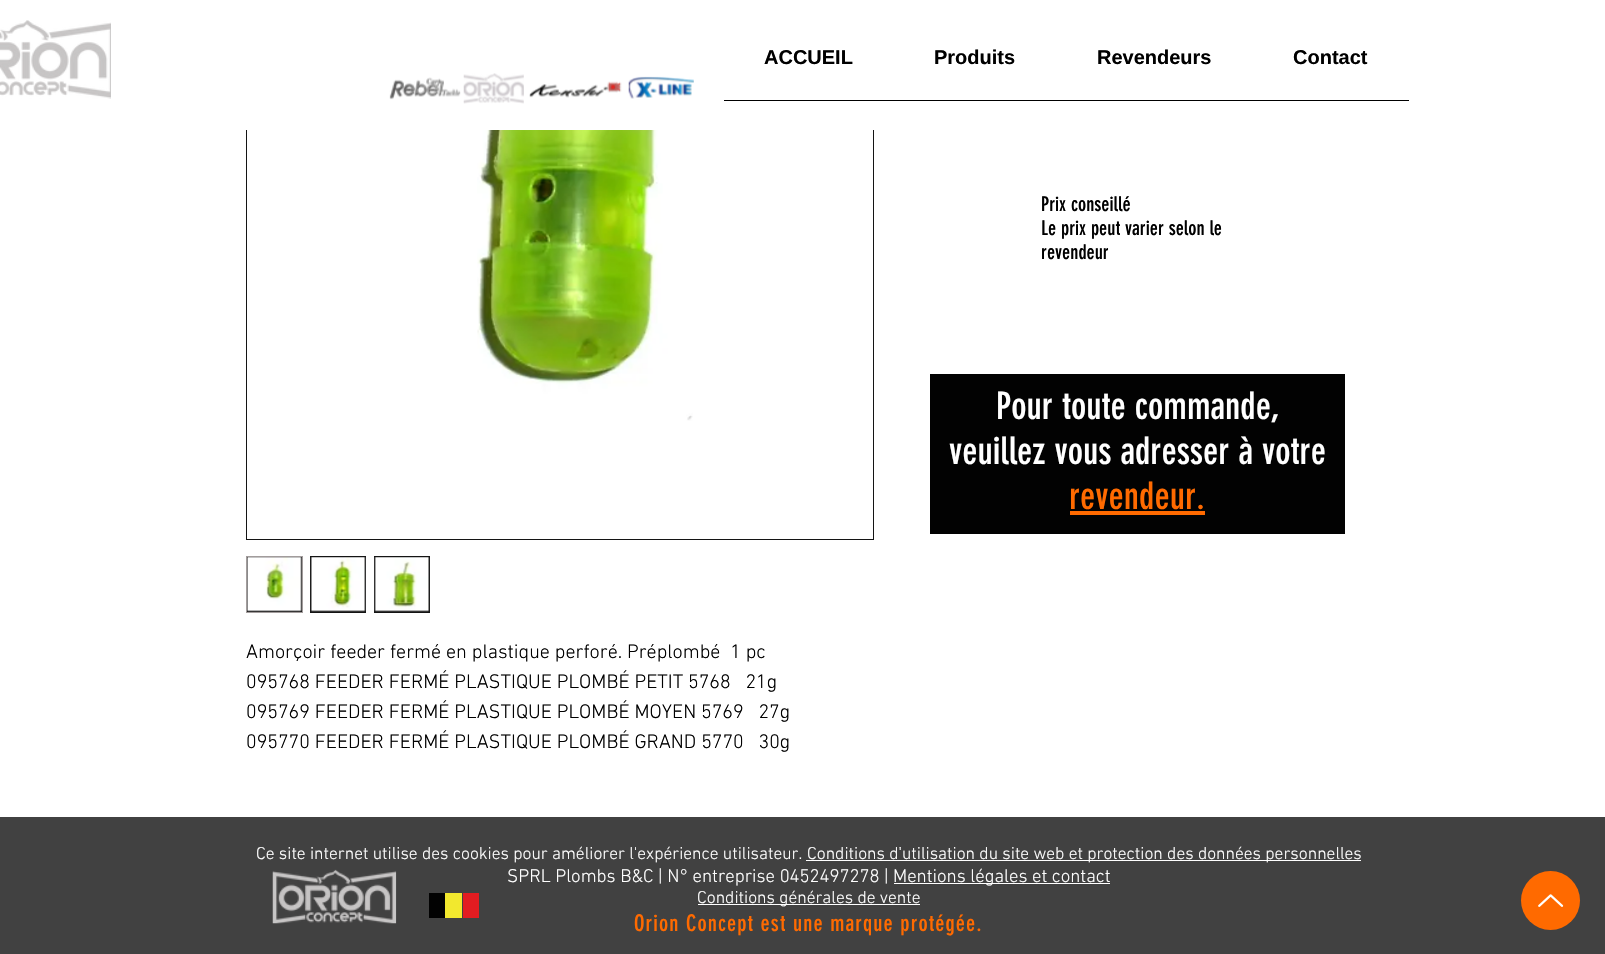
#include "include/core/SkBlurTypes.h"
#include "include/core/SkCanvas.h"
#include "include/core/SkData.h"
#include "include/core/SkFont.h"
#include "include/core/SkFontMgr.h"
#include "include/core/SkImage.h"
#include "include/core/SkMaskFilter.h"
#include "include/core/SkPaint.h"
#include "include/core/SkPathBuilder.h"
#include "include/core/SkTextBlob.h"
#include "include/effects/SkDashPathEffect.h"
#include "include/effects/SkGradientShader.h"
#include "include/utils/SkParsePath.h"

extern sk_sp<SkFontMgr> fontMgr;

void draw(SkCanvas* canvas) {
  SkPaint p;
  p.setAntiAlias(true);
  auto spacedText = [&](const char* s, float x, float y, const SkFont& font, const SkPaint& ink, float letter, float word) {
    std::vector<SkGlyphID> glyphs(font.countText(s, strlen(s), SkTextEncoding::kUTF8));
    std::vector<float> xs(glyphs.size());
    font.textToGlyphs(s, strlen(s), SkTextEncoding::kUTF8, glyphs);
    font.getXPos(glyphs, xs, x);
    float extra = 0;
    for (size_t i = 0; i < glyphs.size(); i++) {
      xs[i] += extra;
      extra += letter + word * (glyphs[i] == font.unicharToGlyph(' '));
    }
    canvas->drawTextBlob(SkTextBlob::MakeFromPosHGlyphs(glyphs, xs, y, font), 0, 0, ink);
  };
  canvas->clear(SK_ColorWHITE);
  p.setStyle(SkPaint::kStroke_Style);
  p.setStrokeWidth(1);
  p.setColor(SkColorSetRGB(20, 20, 20));
  canvas->drawRect(SkRect::MakeLTRB(246.5f, -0.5f, 873.5f, 539.5f), p);
  p.setStyle(SkPaint::kFill_Style);
  p.setColor(SK_ColorWHITE);
  canvas->drawRect(SkRect::MakeLTRB(246, 0, 874, 130), p);
  canvas->drawImageRect(SkImages::DeferredFromEncodedData(SkData::MakeFromFileName("images/1.png")), SkRect::MakeLTRB(0, 20, 111, 99), SkSamplingOptions());
  canvas->drawImageRect(SkImages::DeferredFromEncodedData(SkData::MakeFromFileName("images/2.png")), SkRect::MakeLTRB(389, 77, 461, 100), SkSamplingOptions());
  canvas->drawImageRect(SkImages::DeferredFromEncodedData(SkData::MakeFromFileName("images/3.png")), SkRect::MakeLTRB(463, 73, 524, 104), SkSamplingOptions());
  canvas->drawImageRect(SkImages::DeferredFromEncodedData(SkData::MakeFromFileName("images/4.png")), SkRect::MakeLTRB(529, 81, 622, 98), SkSamplingOptions());
  canvas->drawImageRect(SkImages::DeferredFromEncodedData(SkData::MakeFromFileName("images/5.png")), SkRect::MakeLTRB(628, 76, 694, 99), SkSamplingOptions());
  p.setColor(SK_ColorBLACK);
  canvas->drawRect(SkRect::MakeLTRB(724, 100, 1409, 101), p);
  p.setColor(SkColorSetRGB(2, 2, 2));
  canvas->drawRect(SkRect::MakeLTRB(930, 374, 1345, 534), p);
  p.setColor(SkColorSetRGB(255, 106, 0));
  canvas->drawRect(SkRect::MakeLTRB(1070, 511, 1205, 515), p);
  canvas->drawImageRect(SkImages::DeferredFromEncodedData(SkData::MakeFromFileName("images/6.png")), SkRect::MakeLTRB(477, 130, 693, 421), SkSamplingOptions());
  p.setColor(SkColorSetRGB(20, 20, 20));
  canvas->drawRect(SkRect::MakeLTRB(246.5f, 556.5f, 302.5f, 612.5f), p);
  p.setStyle(SkPaint::kStroke_Style);
  p.setColor(SkColorSetRGB(162, 156, 156));
  canvas->drawRect(SkRect::MakeLTRB(246.5f, 556.5f, 302.5f, 612.5f), p);
  canvas->drawImageRect(SkImages::DeferredFromEncodedData(SkData::MakeFromFileName("images/7.png")), SkRect::MakeLTRB(247, 557, 302, 612), SkSamplingOptions());
  p.setStyle(SkPaint::kFill_Style);
  p.setColor(SkColorSetRGB(20, 20, 20));
  canvas->drawRect(SkRect::MakeLTRB(310, 556, 366, 613), p);
  canvas->drawImageRect(SkImages::DeferredFromEncodedData(SkData::MakeFromFileName("images/8.png")), SkRect::MakeLTRB(310, 557, 366, 612), SkSamplingOptions());
  canvas->drawRect(SkRect::MakeLTRB(374, 556, 430, 613), p);
  canvas->drawImageRect(SkImages::DeferredFromEncodedData(SkData::MakeFromFileName("images/9.png")), SkRect::MakeLTRB(374, 557, 430, 612), SkSamplingOptions());
  p.setColor(SkColorSetRGB(65, 65, 65));
  canvas->drawRect(SkRect::MakeLTRB(0, 817, 1605, 954), p);
  p.setColor(SK_ColorWHITE);
  canvas->drawRect(SkRect::MakeLTRB(806, 860, 1361, 861), p);
  canvas->drawRect(SkRect::MakeLTRB(894, 883, 1110, 884), p);
  canvas->drawRect(SkRect::MakeLTRB(698, 904, 920, 905), p);
  canvas->drawImageRect(SkImages::DeferredFromEncodedData(SkData::MakeFromFileName("images/10.png")), SkRect::MakeLTRB(272, 869, 397, 924), SkSamplingOptions());
  p.setColor(SkColorSetRGB(2, 2, 2));
  canvas->drawRect(SkRect::MakeLTRB(429, 893, 445, 918), p);
  p.setColor(SkColorSetRGB(242, 232, 46));
  canvas->drawRect(SkRect::MakeLTRB(445, 893, 462, 918), p);
  p.setColor(SkColorSetRGB(226, 28, 33));
  canvas->drawRect(SkRect::MakeLTRB(463, 893, 479, 918), p);
  p.setColor(SkColorSetRGB(255, 106, 0));
  canvas->drawCircle(1550.5f, 900.5f, 29.5f, p);
  canvas->drawImageRect(SkImages::DeferredFromEncodedData(SkData::MakeFromFileName("images/11.png")), SkRect::MakeLTRB(1538, 894, 1564, 907), SkSamplingOptions());
  SkFont font1(fontMgr->matchFamilyStyle("Liberation Sans", SkFontStyle::Bold()), 20);
  font1.setSubpixel(true);
  p.setColor(SK_ColorBLACK);
  canvas->drawString("ACCUEIL", 764, 64, font1, p);
  canvas->drawString("Produits", 934, 64, font1, p);
  canvas->drawString("Revendeurs", 1097, 64, font1, p);
  canvas->drawString("Contact", 1293, 64, font1, p);
  SkFont font2(fontMgr->matchFamilyStyle("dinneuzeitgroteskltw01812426", SkFontStyle::Normal()), 20);
  font2.setSubpixel(true);
  canvas->drawString("Prix conseillé", 1041, 211, font2, p);
  canvas->drawString("Le prix peut varier selon le", 1041, 235, font2, p);
  canvas->drawString("revendeur", 1041, 259, font2, p);
  SkFont font3(fontMgr->matchFamilyStyle("dinneuzeitgroteskltw01812426", SkFontStyle::Normal()), 37.5f);
  font3.setSubpixel(true);
  p.setColor(SK_ColorWHITE);
  canvas->drawString("Pour toute commande,", 996, 419, font3, p);
  canvas->drawString("veuillez vous adresser à votre", 949, 464, font3, p);
  p.setColor(SkColorSetRGB(255, 106, 0));
  canvas->drawString("revendeur.", 1069, 509, font3, p);
  SkFont font4(fontMgr->matchFamilyStyle("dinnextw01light", SkFontStyle(300, SkFontStyle::kNormal_Width, SkFontStyle::kUpright_Slant)), 20);
  font4.setSubpixel(true);
  p.setColor(SK_ColorBLACK);
  canvas->drawString("Amorçoir feeder fermé en plastique perforé. Préplombé  1 pc", 246, 658, font4, p);
  canvas->drawString("095768 FEEDER FERMÉ PLASTIQUE PLOMBÉ PETIT 5768   21g", 246, 688, font4, p);
  canvas->drawString("095769 FEEDER FERMÉ PLASTIQUE PLOMBÉ MOYEN 5769   27g", 246, 718, font4, p);
  canvas->drawString("095770 FEEDER FERMÉ PLASTIQUE PLOMBÉ GRAND 5770   30g", 246, 748, font4, p);
  SkFont font5(fontMgr->matchFamilyStyle("dinnextw01light", SkFontStyle(300, SkFontStyle::kNormal_Width, SkFontStyle::kUpright_Slant)), 17.5f);
  font5.setSubpixel(true);
  p.setColor(SK_ColorWHITE);
  canvas->drawString("Ce site internet utilise des cookies pour améliorer l'expérience utilisateur.", 256, 859, font5, p);
  canvas->drawString("Conditions d'utilisation du site web et protection des données personnelles", 807, 859, font5, p);
  SkFont font6(fontMgr->matchFamilyStyle("dinnextw01light", SkFontStyle(300, SkFontStyle::kNormal_Width, SkFontStyle::kUpright_Slant)), 18.75f);
  font6.setSubpixel(true);
  canvas->drawString("SPRL Plombs B&C | N° entreprise 0452497278 |", 507, 882, font6, p);
  canvas->drawString("Mentions légales et contact", 893, 882, font6, p);
  canvas->drawString("Conditions générales de vente", 697, 903, font5, p);
  SkFont font7(fontMgr->matchFamilyStyle("dinneuzeitgroteskltw01812426", SkFontStyle::Normal()), 22.5f);
  font7.setSubpixel(true);
  p.setColor(SkColorSetRGB(255, 106, 0));
  spacedText("Orion Concept est une marque protégée.", 634, 931, font7, p, 1.1f, 0);
}
